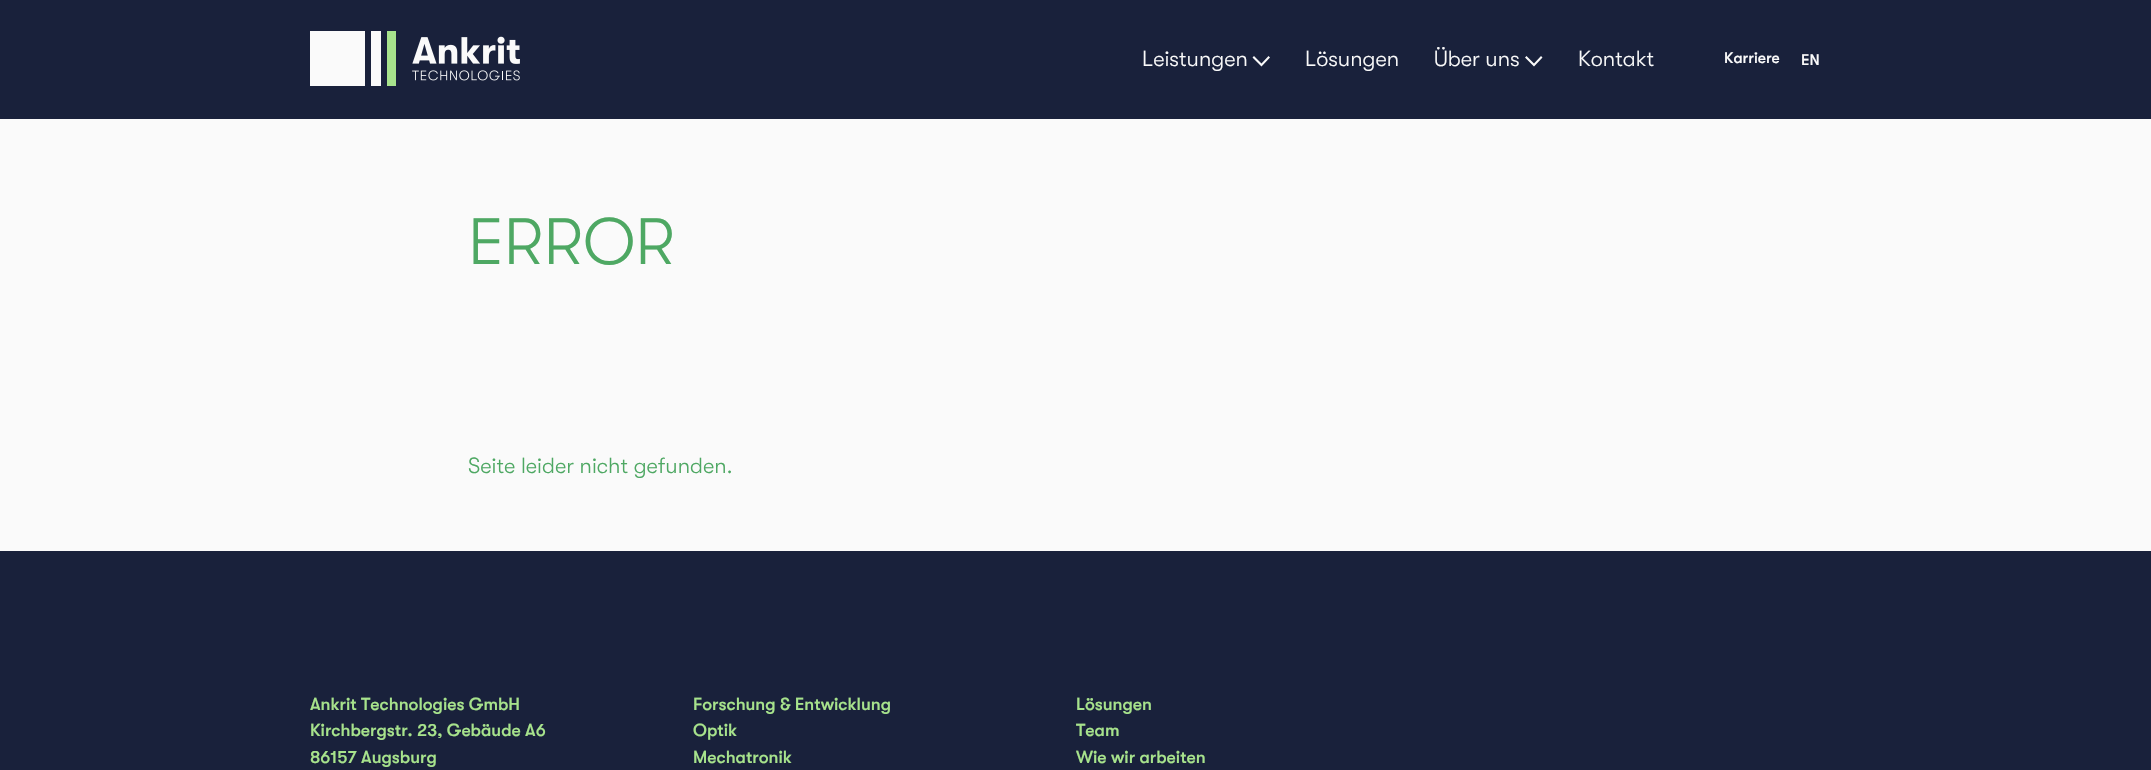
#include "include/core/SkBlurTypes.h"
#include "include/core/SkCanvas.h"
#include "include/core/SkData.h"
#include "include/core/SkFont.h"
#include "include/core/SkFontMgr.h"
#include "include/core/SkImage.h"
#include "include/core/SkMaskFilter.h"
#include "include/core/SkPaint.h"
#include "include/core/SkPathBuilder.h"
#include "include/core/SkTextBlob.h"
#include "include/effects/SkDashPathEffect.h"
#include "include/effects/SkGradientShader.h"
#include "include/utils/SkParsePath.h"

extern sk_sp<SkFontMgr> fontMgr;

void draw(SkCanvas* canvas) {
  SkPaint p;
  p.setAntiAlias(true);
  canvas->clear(SkColorSetRGB(250, 250, 250));
  p.setColor(SkColorSetRGB(25, 33, 59));
  canvas->drawRect(SkRect::MakeLTRB(0, 0, 2151, 119), p);
  canvas->drawImageRect(SkImages::DeferredFromEncodedData(SkData::MakeFromFileName("images/1.png")), SkRect::MakeLTRB(310, 31, 520, 86), SkSamplingOptions());
  p.setColor(SkColorSetRGB(250, 250, 250));
  canvas->drawPath(SkPathBuilder().moveTo(1261.5f, 66.5f).lineTo(1252.5f, 57.5f).lineTo(1254, 56).lineTo(1261.5f, 63.5f).lineTo(1268.5f, 56).lineTo(1270, 57.5f).close().detach(), p);
  canvas->drawPath(SkPathBuilder().moveTo(1534, 66.5f).lineTo(1525, 57.5f).lineTo(1526.5f, 56).lineTo(1534, 63.5f).lineTo(1541, 56).lineTo(1542.5f, 57.5f).close().detach(), p);
  p.setColor(SkColorSetRGB(25, 33, 59));
  canvas->drawRect(SkRect::MakeLTRB(0, 551, 2151, 770), p);
  SkFont font1(fontMgr->matchFamilyStyle("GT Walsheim", SkFontStyle(300, SkFontStyle::kNormal_Width, SkFontStyle::kUpright_Slant)), 21.9f);
  font1.setSubpixel(true);
  p.setColor(SkColorSetRGB(250, 250, 250));
  canvas->drawString("Leistungen", 1142, 66, font1, p);
  canvas->drawString("Lösungen", 1305, 66, font1, p);
  canvas->drawString("Über uns", 1434, 66, font1, p);
  canvas->drawString("Kontakt", 1578, 66, font1, p);
  SkFont font2(fontMgr->matchFamilyStyle("GT Walsheim", SkFontStyle(500, SkFontStyle::kNormal_Width, SkFontStyle::kUpright_Slant)), 15.5f);
  font2.setSubpixel(true);
  canvas->drawString("Karriere", 1724, 63, font2, p);
  canvas->drawString("EN", 1801, 65, font2, p);
  SkFont font3(fontMgr->matchFamilyStyle("GT Walsheim", SkFontStyle(300, SkFontStyle::kNormal_Width, SkFontStyle::kUpright_Slant)), 65.5f);
  font3.setSubpixel(true);
  p.setColor(SkColorSetRGB(78, 168, 99));
  canvas->drawString("ERROR", 468, 264, font3, p);
  canvas->drawString("Seite leider nicht gefunden.", 468, 473, font1, p);
  SkFont font4(fontMgr->matchFamilyStyle("GT Walsheim", SkFontStyle(500, SkFontStyle::kNormal_Width, SkFontStyle::kUpright_Slant)), 17.5f);
  font4.setSubpixel(true);
  p.setColor(SkColorSetRGB(167, 227, 140));
  canvas->drawString("Ankrit Technologies GmbH", 310, 710, font4, p);
  canvas->drawString("Kirchbergstr. 23, Gebäude A6", 310, 736, font4, p);
  canvas->drawString("86157 Augsburg", 310, 763, font4, p);
  canvas->drawString("Forschung & Entwicklung", 693, 710, font4, p);
  canvas->drawString("Optik", 693, 736, font4, p);
  canvas->drawString("Mechatronik", 693, 763, font4, p);
  canvas->drawString("Lösungen", 1076, 710, font4, p);
  canvas->drawString("Team", 1076, 736, font4, p);
  canvas->drawString("Wie wir arbeiten", 1076, 763, font4, p);
}
